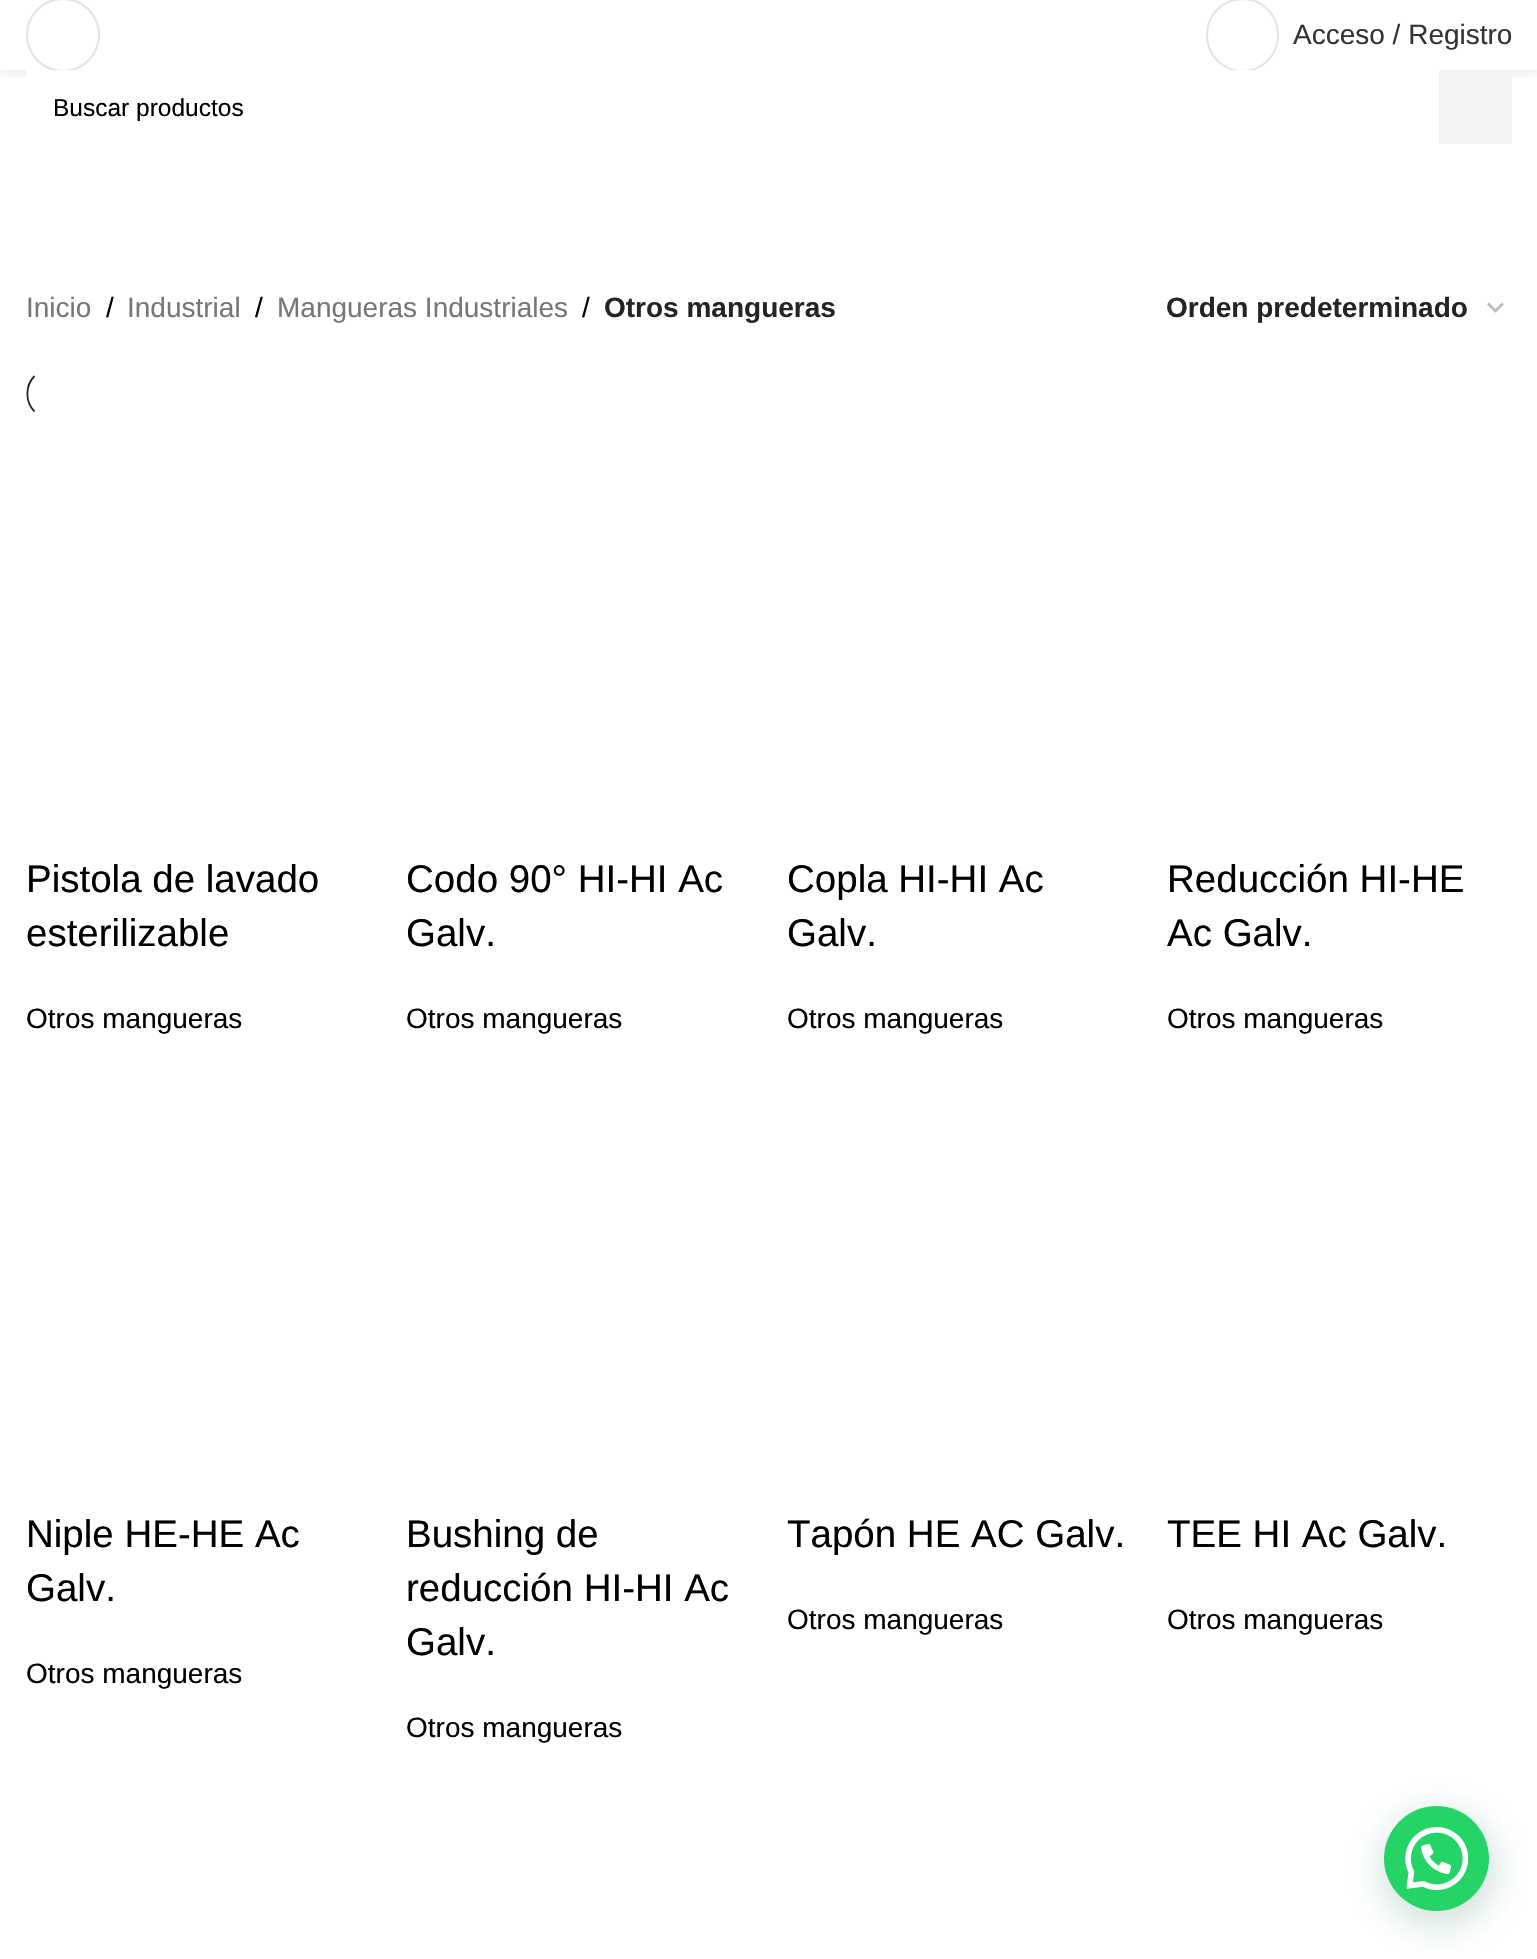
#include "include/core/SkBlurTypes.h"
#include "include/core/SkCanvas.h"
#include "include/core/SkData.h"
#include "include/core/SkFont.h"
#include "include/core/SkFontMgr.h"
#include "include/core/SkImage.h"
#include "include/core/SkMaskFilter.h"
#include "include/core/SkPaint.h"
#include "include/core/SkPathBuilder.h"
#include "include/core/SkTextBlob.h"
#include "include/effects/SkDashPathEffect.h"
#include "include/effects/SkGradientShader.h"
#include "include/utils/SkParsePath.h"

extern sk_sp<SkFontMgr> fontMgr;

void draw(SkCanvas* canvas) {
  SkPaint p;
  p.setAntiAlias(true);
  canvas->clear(SK_ColorWHITE);
  canvas->save();
  canvas->clipRect(SkRect::MakeLTRB(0, 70, 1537, 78));
  p.setColor(SkColorSetARGB(26, 0, 0, 0));
  p.setMaskFilter(SkMaskFilter::MakeBlur(kNormal_SkBlurStyle, 7));
  canvas->drawRect(SkRect::MakeLTRB(0, 2, 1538, 72), p);
  p.setMaskFilter(nullptr);
  canvas->restore();
  p.setStyle(SkPaint::kStroke_Style);
  p.setStrokeWidth(2);
  p.setColor(SkColorSetARGB(28, 0, 0, 0));
  canvas->drawCircle(63, 35, 36, p);
  canvas->drawRoundRect(SkRect::MakeLTRB(1207, -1, 1278, 71), 35.5f, 35.5f, p);
  p.setStyle(SkPaint::kFill_Style);
  p.setColor(SK_ColorWHITE);
  canvas->drawRect(SkRect::MakeLTRB(26, 70, 1439, 81), p);
  p.setColor(SkColorSetRGB(243, 243, 243));
  canvas->drawRect(SkRect::MakeLTRB(1439, 70, 1512, 144), p);
  p.setStyle(SkPaint::kStroke_Style);
  p.setStrokeWidth(2.5f);
  p.setColor(SkColorSetRGB(187, 187, 187));
  canvas->drawPath(SkPathBuilder().moveTo(1488, 303.5f).lineTo(1495.5f, 311).lineTo(1503, 303.5f).detach(), p);
  p.setStrokeWidth(1.8f);
  p.setColor(SkColorSetRGB(36, 36, 36));
  canvas->drawPath(SkPathBuilder().moveTo(34.5f, 411.5f).cubicTo(25, 402, 25, 385.5f, 34.5f, 376).detach(), p);
  p.setStyle(SkPaint::kFill_Style);
  p.setColor(SkColorSetARGB(61, 7, 94, 84));
  p.setMaskFilter(SkMaskFilter::MakeBlur(kNormal_SkBlurStyle, 21));
  canvas->drawRoundRect(SkRect::MakeLTRB(1386, 1817, 1491, 1922), 52.5f, 52.5f, p);
  p.setMaskFilter(nullptr);
  p.setColor(SkColorSetRGB(37, 211, 102));
  canvas->drawCircle(1436.5f, 1858.5f, 52.5f, p);
  canvas->drawImageRect(SkImages::DeferredFromEncodedData(SkData::MakeFromFileName("images/1.png")), SkRect::MakeLTRB(1405, 1827, 1468, 1890), SkSamplingOptions());
  SkFont font1(fontMgr->matchFamilyStyle("Liberation Sans", SkFontStyle::Normal()), 28);
  font1.setSubpixel(true);
  p.setColor(SkColorSetRGB(51, 51, 51));
  canvas->drawString("Acceso / Registro", 1293, 44, font1, p);
  SkFont font2(fontMgr->matchFamilyStyle("Liberation Sans", SkFontStyle::Normal()), 24.5f);
  font2.setSubpixel(true);
  p.setColor(SK_ColorBLACK);
  canvas->drawString("Buscar productos", 53, 116, font2, p);
  p.setColor(SkColorSetRGB(118, 118, 118));
  canvas->drawString("Inicio", 26, 317, font1, p);
  p.setColor(SK_ColorBLACK);
  canvas->drawString("/", 106, 317, font1, p);
  p.setColor(SkColorSetRGB(118, 118, 118));
  canvas->drawString("Industrial", 127, 317, font1, p);
  p.setColor(SK_ColorBLACK);
  canvas->drawString("/", 255, 317, font1, p);
  p.setColor(SkColorSetRGB(118, 118, 118));
  canvas->drawString("Mangueras Industriales", 277, 317, font1, p);
  p.setColor(SK_ColorBLACK);
  canvas->drawString("/", 582, 317, font1, p);
  SkFont font3(fontMgr->matchFamilyStyle("Liberation Sans", SkFontStyle::Bold()), 28);
  font3.setSubpixel(true);
  p.setColor(SkColorSetRGB(36, 36, 36));
  canvas->drawString("Otros mangueras", 604, 317, font3, p);
  canvas->drawString("Orden predeterminado", 1166, 317, font3, p);
  SkFont font4(fontMgr->matchFamilyStyle("Liberation Sans", SkFontStyle::Normal()), 38.5f);
  font4.setSubpixel(true);
  p.setColor(SK_ColorBLACK);
  canvas->drawString("Pistola de lavado", 26, 892, font4, p);
  canvas->drawString("esterilizable", 26, 946, font4, p);
  canvas->drawString("Otros mangueras", 26, 1028, font1, p);
  canvas->drawString("Codo 90° HI-HI Ac", 406, 892, font4, p);
  canvas->drawString("Galv.", 406, 946, font4, p);
  canvas->drawString("Otros mangueras", 406, 1028, font1, p);
  canvas->drawString("Copla HI-HI Ac", 787, 892, font4, p);
  canvas->drawString("Galv.", 787, 946, font4, p);
  canvas->drawString("Otros mangueras", 787, 1028, font1, p);
  canvas->drawString("Reducción HI-HE", 1167, 892, font4, p);
  canvas->drawString("Ac Galv.", 1167, 946, font4, p);
  canvas->drawString("Otros mangueras", 1167, 1028, font1, p);
  canvas->drawString("Niple HE-HE Ac", 26, 1547, font4, p);
  canvas->drawString("Galv.", 26, 1601, font4, p);
  canvas->drawString("Otros mangueras", 26, 1683, font1, p);
  canvas->drawString("Bushing de", 406, 1547, font4, p);
  canvas->drawString("reducción HI-HI Ac", 406, 1601, font4, p);
  canvas->drawString("Galv.", 406, 1655, font4, p);
  canvas->drawString("Otros mangueras", 406, 1737, font1, p);
  canvas->drawString("Tapón HE AC Galv.", 787, 1547, font4, p);
  canvas->drawString("Otros mangueras", 787, 1629, font1, p);
  canvas->drawString("TEE HI Ac Galv.", 1167, 1547, font4, p);
  canvas->drawString("Otros mangueras", 1167, 1629, font1, p);
}
